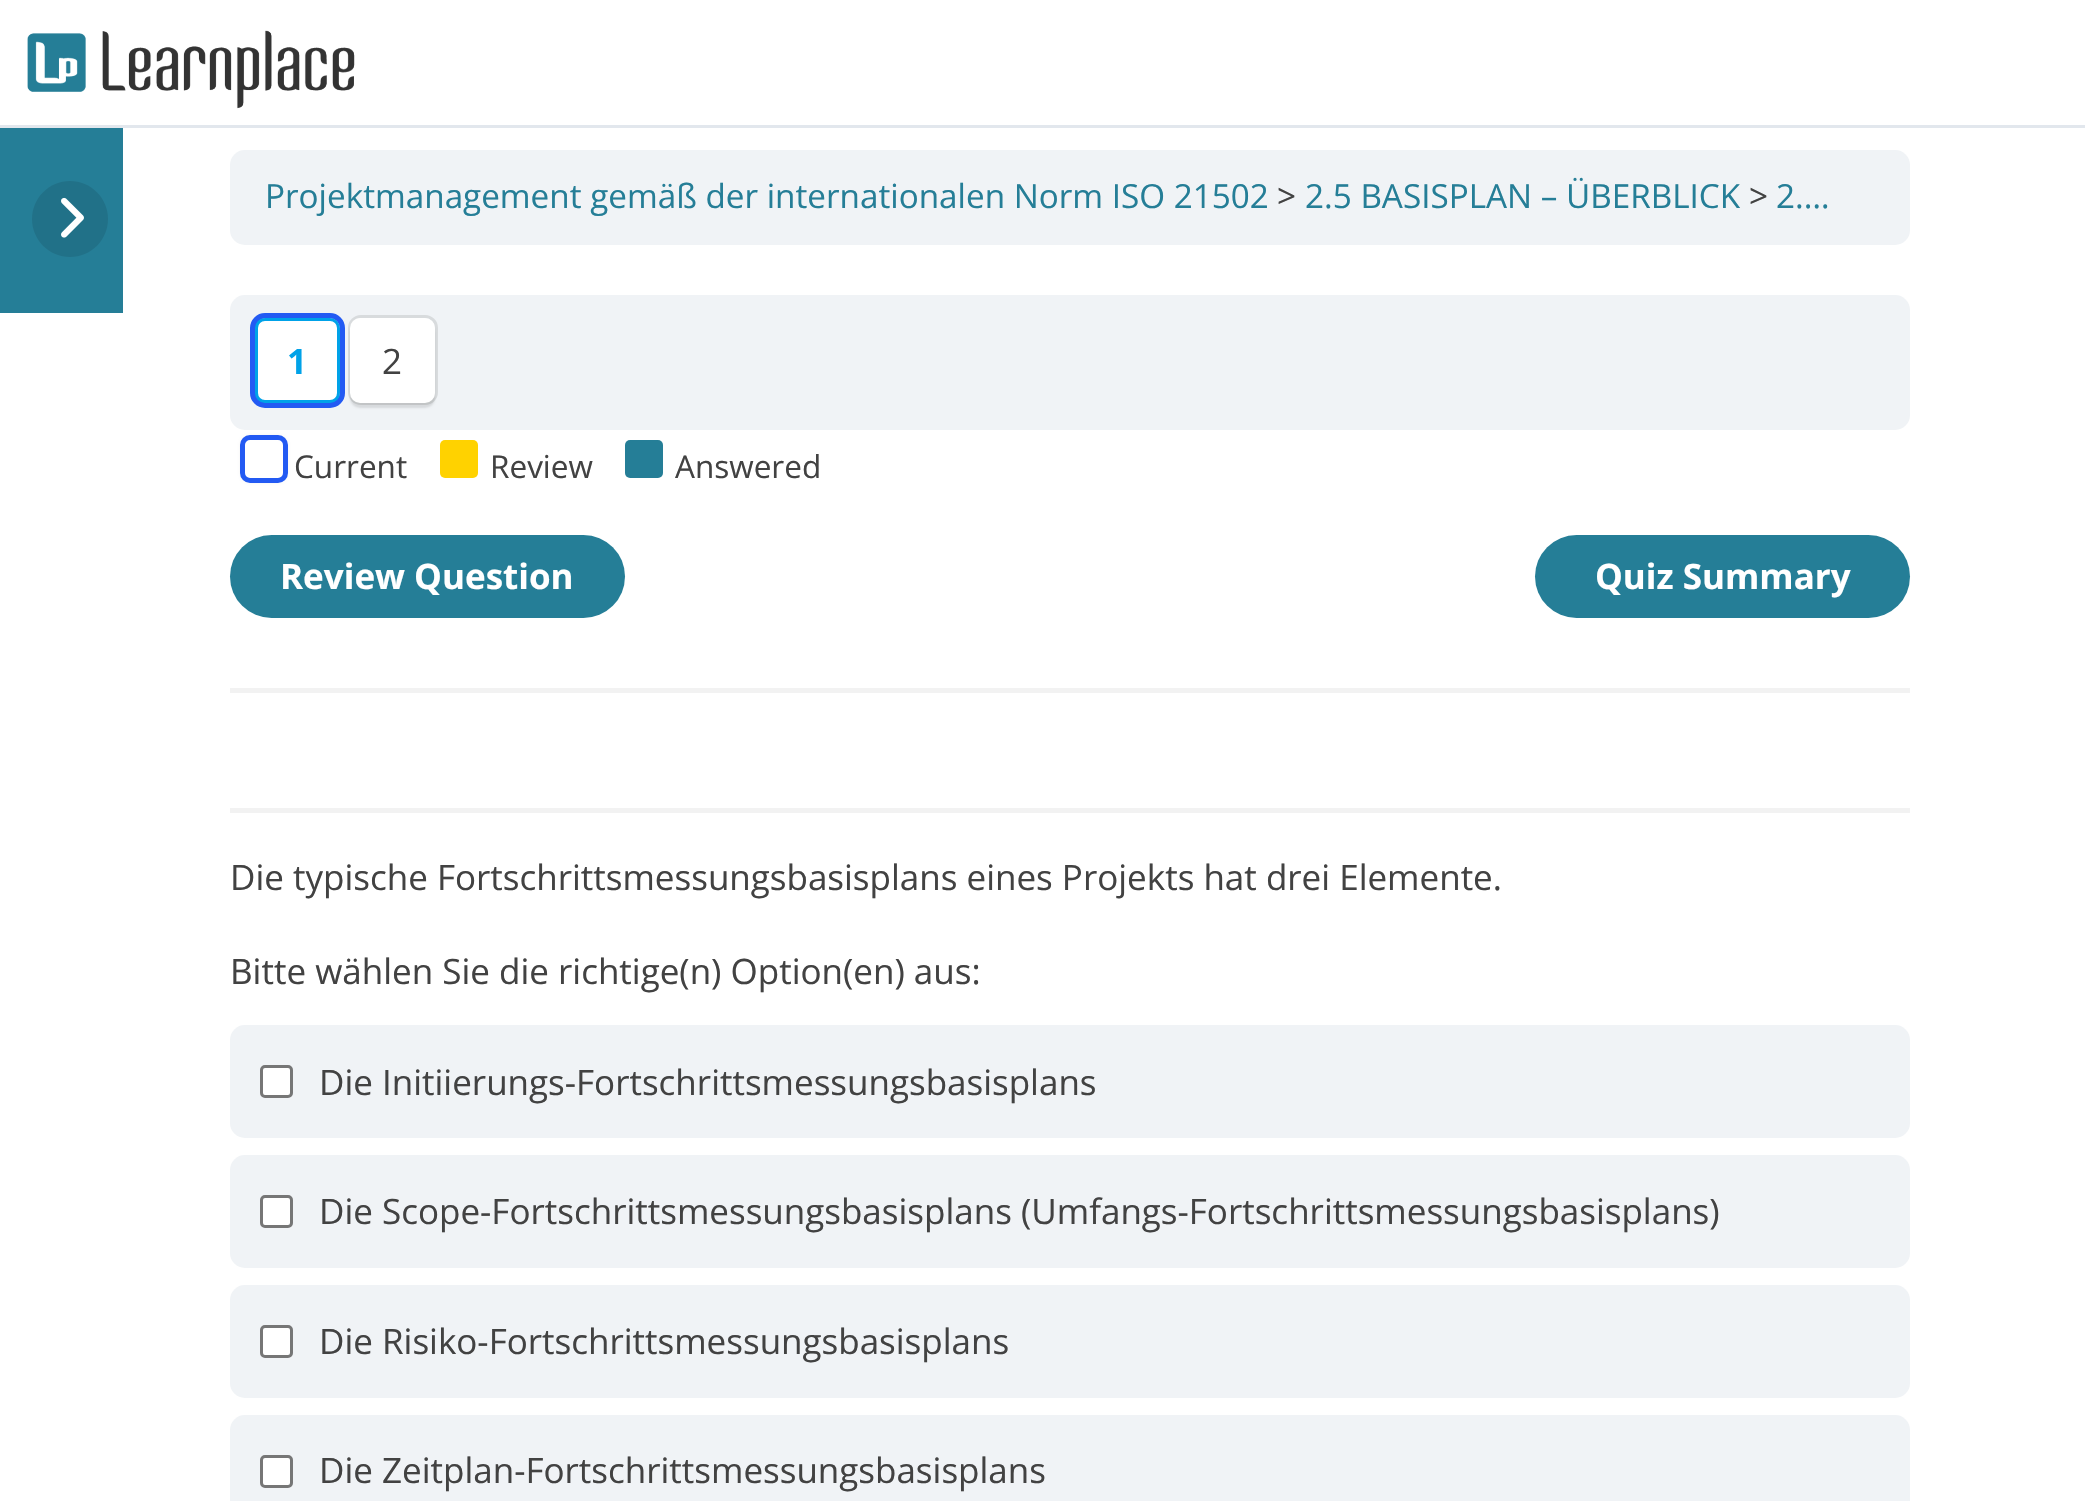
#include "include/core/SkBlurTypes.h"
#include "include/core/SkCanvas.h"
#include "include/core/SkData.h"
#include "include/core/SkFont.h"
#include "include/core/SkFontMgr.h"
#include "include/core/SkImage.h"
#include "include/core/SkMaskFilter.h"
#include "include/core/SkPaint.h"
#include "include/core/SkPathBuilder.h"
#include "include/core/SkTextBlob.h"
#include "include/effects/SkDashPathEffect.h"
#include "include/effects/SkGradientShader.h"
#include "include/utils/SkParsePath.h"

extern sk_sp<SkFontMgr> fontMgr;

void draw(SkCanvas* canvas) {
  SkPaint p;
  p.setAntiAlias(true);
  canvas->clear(SK_ColorWHITE);
  p.setColor(SkColorSetRGB(37, 126, 151));
  canvas->drawRect(SkRect::MakeLTRB(0, 128, 123, 313), p);
  p.setColor(SkColorSetRGB(33, 113, 136));
  canvas->drawPath(SkPathBuilder().moveTo(70, 257).cubicTo(49, 257, 32, 240, 32, 219).cubicTo(32, 198, 49, 181, 70, 181).cubicTo(91, 181, 108, 198, 108, 219).cubicTo(108, 240, 91, 257, 70, 257).close().detach(), p);
  canvas->drawImageRect(SkImages::DeferredFromEncodedData(SkData::MakeFromFileName("images/1.png")), SkRect::MakeLTRB(61, 197, 84, 238), SkSamplingOptions());
  p.setColor(SkColorSetRGB(226, 231, 237));
  canvas->drawRect(SkRect::MakeLTRB(0, 125, 2085, 128), p);
  canvas->drawImageRect(SkImages::DeferredFromEncodedData(SkData::MakeFromFileName("images/2.png")), SkRect::MakeLTRB(27, 30, 355, 109), SkSamplingOptions());
  p.setColor(SkColorSetRGB(240, 243, 246));
  canvas->drawRoundRect(SkRect::MakeLTRB(230, 150, 1910, 245), 15, 15, p);
  p.setColor(SkColorSetRGB(242, 242, 242));
  canvas->drawRect(SkRect::MakeLTRB(230, 688, 1910, 693), p);
  p.setColor(SkColorSetRGB(196, 196, 196));
  p.setMaskFilter(SkMaskFilter::MakeBlur(kNormal_SkBlurStyle, 2.5f));
  canvas->drawRoundRect(SkRect::MakeLTRB(243, 438, 285, 480), 8, 8, p);
  p.setMaskFilter(nullptr);
  p.setColor(SkColorSetRGB(240, 243, 246));
  canvas->drawRoundRect(SkRect::MakeLTRB(230, 295, 1910, 430), 15, 15, p);
  p.setStyle(SkPaint::kStroke_Style);
  p.setStrokeWidth(3);
  p.setColor(SkColorSetRGB(0, 162, 232));
  canvas->drawRoundRect(SkRect::MakeLTRB(254.5f, 316.5f, 341.5f, 403.5f), 11.5f, 11.5f, p);
  p.setStyle(SkPaint::kFill_Style);
  p.setColor(SK_ColorWHITE);
  canvas->drawRoundRect(SkRect::MakeLTRB(256.5f, 319.5f, 338.5f, 401.5f), 8.5f, 8.5f, p);
  p.setStyle(SkPaint::kStroke_Style);
  p.setColor(SkColorSetRGB(0, 162, 232));
  canvas->drawRoundRect(SkRect::MakeLTRB(256.5f, 319.5f, 338.5f, 401.5f), 8.5f, 8.5f, p);
  p.setStrokeWidth(5);
  p.setColor(SkColorSetRGB(35, 90, 243));
  canvas->drawRoundRect(SkRect::MakeLTRB(252.5f, 315.5f, 342.5f, 405.5f), 12.5f, 12.5f, p);
  p.setStrokeWidth(3);
  p.setColor(SkColorSetRGB(216, 219, 221));
  canvas->drawRoundRect(SkRect::MakeLTRB(349.5f, 316.5f, 436.5f, 403.5f), 11.5f, 11.5f, p);
  p.setStyle(SkPaint::kFill_Style);
  p.setColor(SkColorSetARGB(26, 0, 0, 0));
  p.setMaskFilter(SkMaskFilter::MakeBlur(kNormal_SkBlurStyle, 1));
  canvas->drawRoundRect(SkRect::MakeLTRB(350, 323, 435, 408), 10, 10, p);
  p.setMaskFilter(nullptr);
  p.setColor(SK_ColorWHITE);
  canvas->drawRoundRect(SkRect::MakeLTRB(350, 318, 435, 403), 10, 10, p);
  canvas->drawRoundRect(SkRect::MakeLTRB(242.5f, 437.5f, 285.5f, 480.5f), 7.5f, 7.5f, p);
  p.setStyle(SkPaint::kStroke_Style);
  p.setStrokeWidth(5);
  p.setColor(SkColorSetRGB(35, 90, 243));
  canvas->drawRoundRect(SkRect::MakeLTRB(242.5f, 437.5f, 285.5f, 480.5f), 7.5f, 7.5f, p);
  p.setStyle(SkPaint::kFill_Style);
  p.setColor(SkColorSetRGB(255, 210, 0));
  canvas->drawRoundRect(SkRect::MakeLTRB(440, 440, 478, 478), 5, 5, p);
  p.setColor(SkColorSetRGB(37, 126, 151));
  canvas->drawRoundRect(SkRect::MakeLTRB(625, 440, 663, 478), 5, 5, p);
  canvas->drawRoundRect(SkRect::MakeLTRB(230, 535, 625, 618), 41.5f, 41.5f, p);
  canvas->drawRoundRect(SkRect::MakeLTRB(1535, 535, 1910, 618), 41.5f, 41.5f, p);
  p.setColor(SkColorSetRGB(242, 242, 242));
  canvas->drawRect(SkRect::MakeLTRB(230, 808, 1910, 813), p);
  p.setColor(SkColorSetRGB(240, 243, 246));
  canvas->drawRoundRect(SkRect::MakeLTRB(230, 1025, 1910, 1138), 15, 15, p);
  p.setColor(SK_ColorWHITE);
  canvas->drawRoundRect(SkRect::MakeLTRB(261.5f, 1066.5f, 291.5f, 1096.5f), 3.5f, 3.5f, p);
  p.setStyle(SkPaint::kStroke_Style);
  p.setStrokeWidth(3);
  p.setColor(SkColorSetRGB(118, 118, 118));
  canvas->drawRoundRect(SkRect::MakeLTRB(261.5f, 1066.5f, 291.5f, 1096.5f), 3.5f, 3.5f, p);
  p.setStyle(SkPaint::kFill_Style);
  p.setColor(SkColorSetRGB(240, 243, 246));
  canvas->drawRoundRect(SkRect::MakeLTRB(230, 1155, 1910, 1268), 15, 15, p);
  p.setColor(SK_ColorWHITE);
  canvas->drawRoundRect(SkRect::MakeLTRB(261.5f, 1196.5f, 291.5f, 1226.5f), 3.5f, 3.5f, p);
  p.setStyle(SkPaint::kStroke_Style);
  p.setColor(SkColorSetRGB(118, 118, 118));
  canvas->drawRoundRect(SkRect::MakeLTRB(261.5f, 1196.5f, 291.5f, 1226.5f), 3.5f, 3.5f, p);
  p.setStyle(SkPaint::kFill_Style);
  p.setColor(SkColorSetRGB(240, 243, 246));
  canvas->drawRoundRect(SkRect::MakeLTRB(230, 1285, 1910, 1398), 15, 15, p);
  p.setColor(SK_ColorWHITE);
  canvas->drawRoundRect(SkRect::MakeLTRB(261.5f, 1326.5f, 291.5f, 1356.5f), 3.5f, 3.5f, p);
  p.setStyle(SkPaint::kStroke_Style);
  p.setColor(SkColorSetRGB(118, 118, 118));
  canvas->drawRoundRect(SkRect::MakeLTRB(261.5f, 1326.5f, 291.5f, 1356.5f), 3.5f, 3.5f, p);
  p.setStyle(SkPaint::kFill_Style);
  p.setColor(SkColorSetRGB(240, 243, 246));
  canvas->drawRoundRect(SkRect::MakeLTRB(230, 1415, 1910, 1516), 15, 15, p);
  p.setColor(SK_ColorWHITE);
  canvas->drawRoundRect(SkRect::MakeLTRB(261.5f, 1456.5f, 291.5f, 1486.5f), 3.5f, 3.5f, p);
  p.setStyle(SkPaint::kStroke_Style);
  p.setColor(SkColorSetRGB(118, 118, 118));
  canvas->drawRoundRect(SkRect::MakeLTRB(261.5f, 1456.5f, 291.5f, 1486.5f), 3.5f, 3.5f, p);
  SkFont font1(fontMgr->matchFamilyStyle("Open Sans", SkFontStyle::Normal()), 33.25f);
  font1.setSubpixel(true);
  p.setStyle(SkPaint::kFill_Style);
  p.setColor(SkColorSetRGB(37, 126, 151));
  canvas->drawString("Projektmanagement gemäß der internationalen Norm ISO 21502", 265, 208, font1, p);
  p.setColor(SkColorSetRGB(66, 66, 66));
  canvas->drawString(">", 1277, 208, font1, p);
  p.setColor(SkColorSetRGB(37, 126, 151));
  canvas->drawString("2.5 BASISPLAN – ÜBERBLICK", 1305, 208, font1, p);
  p.setColor(SkColorSetRGB(66, 66, 66));
  canvas->drawString(">", 1749, 208, font1, p);
  p.setColor(SkColorSetRGB(37, 126, 151));
  canvas->drawString("2.…", 1776, 208, font1, p);
  SkFont font2(fontMgr->matchFamilyStyle("Open Sans", SkFontStyle::Bold()), 35);
  font2.setSubpixel(true);
  p.setColor(SkColorSetRGB(0, 162, 232));
  canvas->drawString("1", 287, 374, font2, p);
  SkFont font3(fontMgr->matchFamilyStyle("Open Sans", SkFontStyle::Normal()), 35);
  font3.setSubpixel(true);
  p.setColor(SkColorSetRGB(66, 66, 66));
  canvas->drawString("2", 382, 374, font3, p);
  SkFont font4(fontMgr->matchFamilyStyle("Open Sans", SkFontStyle::Normal()), 31.5f);
  font4.setSubpixel(true);
  canvas->drawString("Current", 294, 478, font4, p);
  canvas->drawString("Review", 490, 478, font4, p);
  canvas->drawString("Answered", 675, 478, font4, p);
  p.setColor(SK_ColorWHITE);
  canvas->drawString("Review Question", 280, 589, font2, p);
  canvas->drawString("Quiz Summary", 1595, 589, font2, p);
  p.setColor(SkColorSetRGB(66, 66, 66));
  canvas->drawString("Die typische Fortschrittsmessungsbasisplans eines Projekts hat drei Elemente.", 230, 890, font3, p);
  canvas->drawString("Bitte wählen Sie die richtige(n) Option(en) aus:", 230, 984, font3, p);
  canvas->drawString("Die Initiierungs-Fortschrittsmessungsbasisplans", 319, 1095, font3, p);
  canvas->drawString("Die Scope-Fortschrittsmessungsbasisplans (Umfangs-Fortschrittsmessungsbasisplans)", 319, 1224, font3, p);
  canvas->drawString("Die Risiko-Fortschrittsmessungsbasisplans", 319, 1354, font3, p);
  canvas->drawString("Die Zeitplan-Fortschrittsmessungsbasisplans", 319, 1483, font3, p);
}
